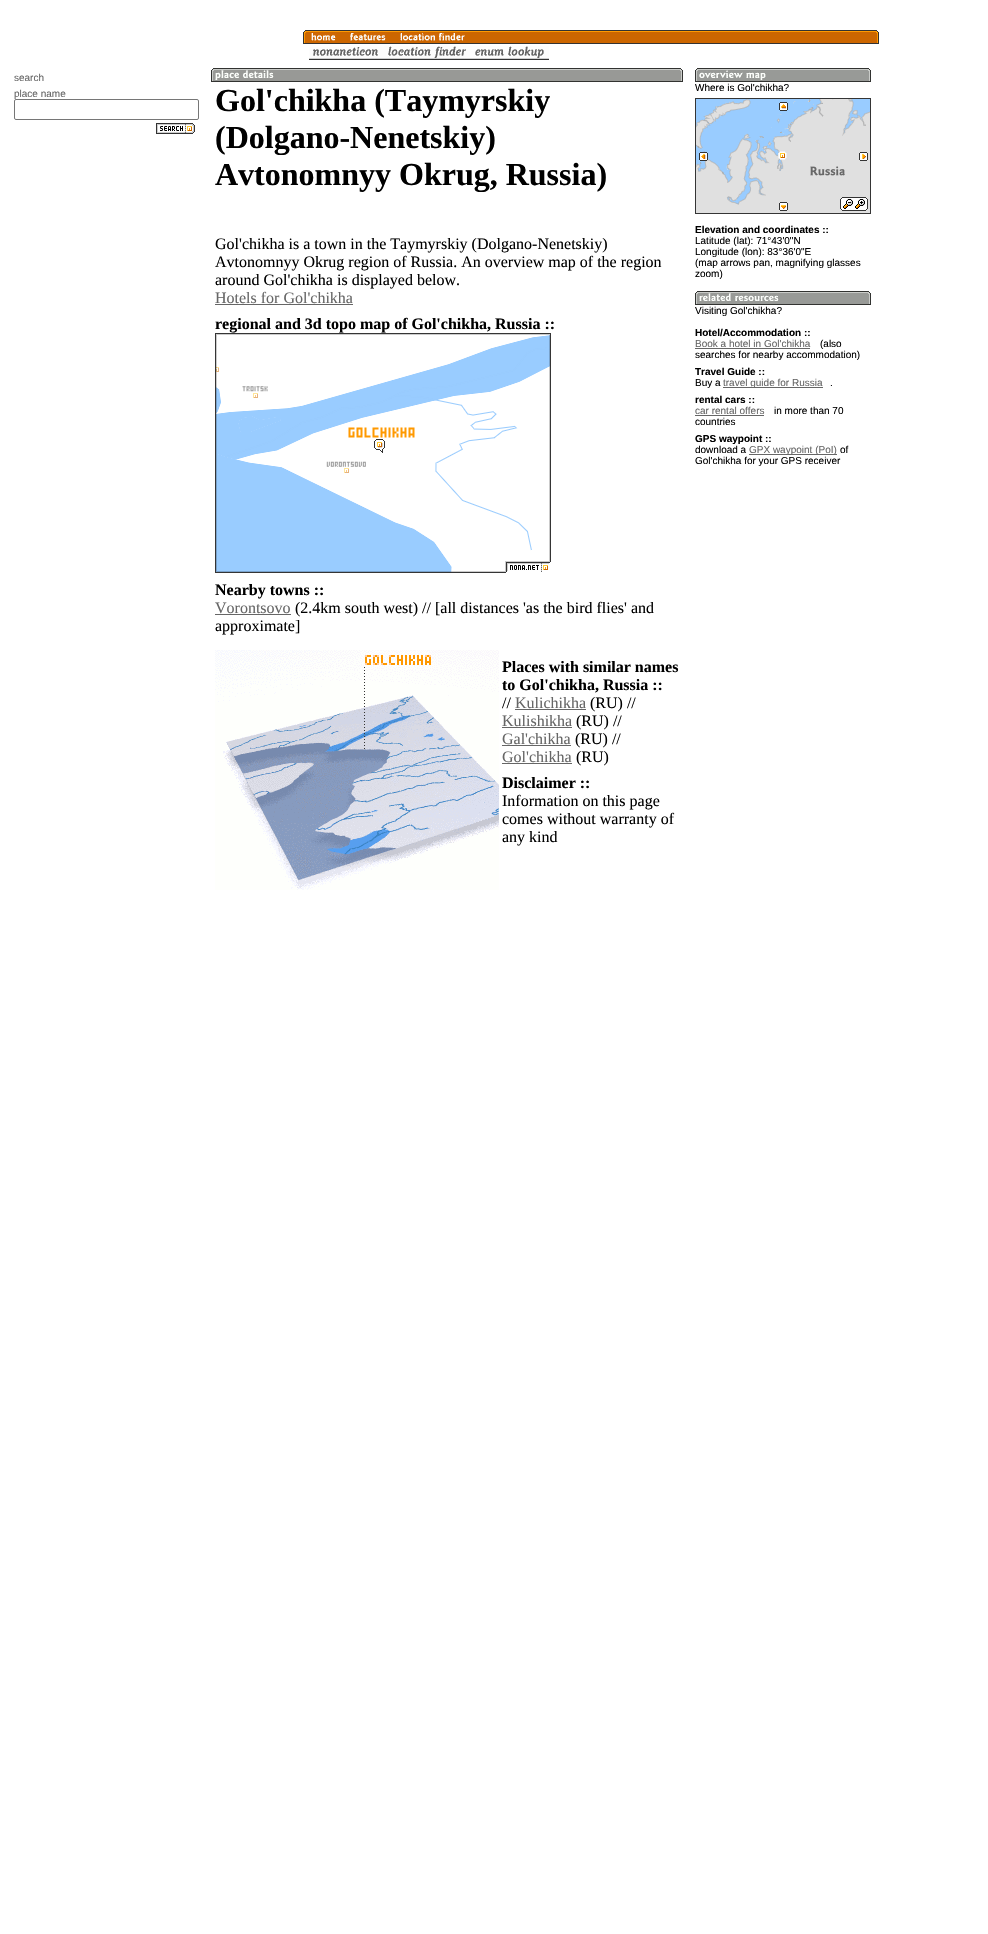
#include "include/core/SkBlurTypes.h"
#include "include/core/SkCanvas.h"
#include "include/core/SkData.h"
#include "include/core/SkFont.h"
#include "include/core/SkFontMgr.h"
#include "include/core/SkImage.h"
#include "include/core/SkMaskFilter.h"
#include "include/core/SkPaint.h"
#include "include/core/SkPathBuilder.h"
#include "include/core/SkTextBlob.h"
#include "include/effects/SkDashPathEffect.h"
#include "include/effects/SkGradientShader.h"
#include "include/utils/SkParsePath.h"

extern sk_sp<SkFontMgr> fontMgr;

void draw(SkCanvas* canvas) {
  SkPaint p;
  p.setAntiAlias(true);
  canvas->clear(SK_ColorWHITE);
  canvas->drawImageRect(SkImages::DeferredFromEncodedData(SkData::MakeFromFileName("images/1.png")), SkRect::MakeLTRB(303, 30, 879, 44), SkSamplingOptions());
  canvas->drawImageRect(SkImages::DeferredFromEncodedData(SkData::MakeFromFileName("images/2.png")), SkRect::MakeLTRB(311, 33, 336, 41), SkSamplingOptions());
  canvas->drawImageRect(SkImages::DeferredFromEncodedData(SkData::MakeFromFileName("images/3.png")), SkRect::MakeLTRB(350, 33, 386, 41), SkSamplingOptions());
  canvas->drawImageRect(SkImages::DeferredFromEncodedData(SkData::MakeFromFileName("images/4.png")), SkRect::MakeLTRB(400, 33, 465, 41), SkSamplingOptions());
  canvas->drawImageRect(SkImages::DeferredFromEncodedData(SkData::MakeFromFileName("images/5.png")), SkRect::MakeLTRB(309, 47, 384, 60), SkSamplingOptions());
  canvas->drawImageRect(SkImages::DeferredFromEncodedData(SkData::MakeFromFileName("images/6.png")), SkRect::MakeLTRB(384, 46, 471, 60), SkSamplingOptions());
  canvas->drawImageRect(SkImages::DeferredFromEncodedData(SkData::MakeFromFileName("images/7.png")), SkRect::MakeLTRB(471, 46, 549, 60), SkSamplingOptions());
  canvas->drawImageRect(SkImages::DeferredFromEncodedData(SkData::MakeFromFileName("images/8.png")), SkRect::MakeLTRB(156, 123, 195, 134), SkSamplingOptions());
  canvas->drawImageRect(SkImages::DeferredFromEncodedData(SkData::MakeFromFileName("images/9.png")), SkRect::MakeLTRB(211, 68, 683, 82), SkSamplingOptions());
  p.setColor(SkColorSetRGB(102, 102, 102));
  canvas->drawRect(SkRect::MakeLTRB(215, 304, 353, 305), p);
  canvas->drawImageRect(SkImages::DeferredFromEncodedData(SkData::MakeFromFileName("images/10.png")), SkRect::MakeLTRB(215, 333, 551, 573), SkSamplingOptions());
  canvas->drawRect(SkRect::MakeLTRB(215, 614, 291, 615), p);
  canvas->drawImageRect(SkImages::DeferredFromEncodedData(SkData::MakeFromFileName("images/11.png")), SkRect::MakeLTRB(215, 650, 499, 890), SkSamplingOptions());
  canvas->drawRect(SkRect::MakeLTRB(515, 709, 586, 710), p);
  canvas->drawRect(SkRect::MakeLTRB(502, 727, 572, 728), p);
  canvas->drawRect(SkRect::MakeLTRB(502, 745, 571, 746), p);
  canvas->drawRect(SkRect::MakeLTRB(502, 763, 572, 764), p);
  canvas->drawImageRect(SkImages::DeferredFromEncodedData(SkData::MakeFromFileName("images/12.png")), SkRect::MakeLTRB(695, 68, 871, 82), SkSamplingOptions());
  canvas->drawImageRect(SkImages::DeferredFromEncodedData(SkData::MakeFromFileName("images/13.png")), SkRect::MakeLTRB(695, 98, 871, 214), SkSamplingOptions());
  canvas->drawImageRect(SkImages::DeferredFromEncodedData(SkData::MakeFromFileName("images/14.png")), SkRect::MakeLTRB(695, 291, 871, 305), SkSamplingOptions());
  canvas->drawRect(SkRect::MakeLTRB(695, 348, 810, 349), p);
  canvas->drawRect(SkRect::MakeLTRB(723, 387, 823, 388), p);
  canvas->drawRect(SkRect::MakeLTRB(695, 415, 764, 416), p);
  canvas->drawRect(SkRect::MakeLTRB(749, 454, 837, 455), p);
  SkFont font1(fontMgr->matchFamilyStyle("Liberation Sans", SkFontStyle::Normal()), 10);
  font1.setSubpixel(true);
  canvas->drawString("search", 14, 81, font1, p);
  canvas->drawString("place name", 14, 97, font1, p);
  p.setColor(SK_ColorWHITE);
  canvas->drawRoundRect(SkRect::MakeLTRB(14.5f, 99.5f, 198.5f, 119.5f), 1.5f, 1.5f, p);
  p.setStyle(SkPaint::kStroke_Style);
  p.setStrokeWidth(1);
  p.setColor(SkColorSetRGB(118, 118, 118));
  canvas->drawRoundRect(SkRect::MakeLTRB(14.5f, 99.5f, 198.5f, 119.5f), 1.5f, 1.5f, p);
  SkFont font2(fontMgr->matchFamilyStyle("Liberation Serif", SkFontStyle::Bold()), 32);
  font2.setSubpixel(true);
  p.setStyle(SkPaint::kFill_Style);
  p.setColor(SK_ColorBLACK);
  canvas->drawString("Gol'chikha (Taymyrskiy", 215, 111, font2, p);
  canvas->drawString("(Dolgano-Nenetskiy)", 215, 148, font2, p);
  canvas->drawString("Avtonomnyy Okrug, Russia)", 215, 185, font2, p);
  SkFont font3(fontMgr->matchFamilyStyle("Liberation Serif", SkFontStyle::Normal()), 16);
  font3.setSubpixel(true);
  canvas->drawString("Gol'chikha is a town in the Taymyrskiy (Dolgano-Nenetskiy)", 215, 249, font3, p);
  canvas->drawString("Avtonomnyy Okrug region of Russia. An overview map of the region", 215, 267, font3, p);
  canvas->drawString("around Gol'chikha is displayed below.", 215, 285, font3, p);
  p.setColor(SkColorSetRGB(102, 102, 102));
  canvas->drawString("Hotels for Gol'chikha", 215, 303, font3, p);
  SkFont font4(fontMgr->matchFamilyStyle("Liberation Serif", SkFontStyle::Bold()), 16);
  font4.setSubpixel(true);
  p.setColor(SK_ColorBLACK);
  canvas->drawString("regional and 3d topo map of Gol'chikha, Russia ::", 215, 329, font4, p);
  canvas->drawString("Nearby towns ::", 215, 595, font4, p);
  p.setColor(SkColorSetRGB(102, 102, 102));
  canvas->drawString("Vorontsovo", 215, 613, font3, p);
  p.setColor(SK_ColorBLACK);
  canvas->drawString("(2.4km south west) // [all distances 'as the bird flies' and", 295, 613, font3, p);
  canvas->drawString("approximate]", 215, 631, font3, p);
  canvas->drawString("Places with similar names", 502, 672, font4, p);
  canvas->drawString("to Gol'chikha, Russia ::", 502, 690, font4, p);
  canvas->drawString("//", 502, 708, font3, p);
  p.setColor(SkColorSetRGB(102, 102, 102));
  canvas->drawString("Kulichikha", 515, 708, font3, p);
  p.setColor(SK_ColorBLACK);
  canvas->drawString("(RU) //", 590, 708, font3, p);
  p.setColor(SkColorSetRGB(102, 102, 102));
  canvas->drawString("Kulishikha", 502, 726, font3, p);
  p.setColor(SK_ColorBLACK);
  canvas->drawString("(RU) //", 576, 726, font3, p);
  p.setColor(SkColorSetRGB(102, 102, 102));
  canvas->drawString("Gal'chikha", 502, 744, font3, p);
  p.setColor(SK_ColorBLACK);
  canvas->drawString("(RU) //", 575, 744, font3, p);
  p.setColor(SkColorSetRGB(102, 102, 102));
  canvas->drawString("Gol'chikha", 502, 762, font3, p);
  p.setColor(SK_ColorBLACK);
  canvas->drawString("(RU)", 576, 762, font3, p);
  canvas->drawString("Disclaimer ::", 502, 788, font4, p);
  canvas->drawString("Information on this page", 502, 806, font3, p);
  canvas->drawString("comes without warranty of", 502, 824, font3, p);
  canvas->drawString("any kind", 502, 842, font3, p);
  canvas->drawString("Where is Gol'chikha?", 695, 91, font1, p);
  SkFont font5(fontMgr->matchFamilyStyle("Liberation Sans", SkFontStyle::Bold()), 10);
  font5.setSubpixel(true);
  canvas->drawString("Elevation and coordinates ::", 695, 233, font5, p);
  canvas->drawString("Latitude (lat): 71°43'0\"N", 695, 244, font1, p);
  canvas->drawString("Longitude (lon): 83°36'0\"E", 695, 255, font1, p);
  canvas->drawString("(map arrows pan, magnifying glasses", 695, 266, font1, p);
  canvas->drawString("zoom)", 695, 277, font1, p);
  canvas->drawString("Visiting Gol'chikha?", 695, 314, font1, p);
  canvas->drawString("Hotel/Accommodation ::", 695, 336, font5, p);
  p.setColor(SkColorSetRGB(102, 102, 102));
  canvas->drawString("Book a hotel in Gol'chikha", 695, 347, font1, p);
  p.setColor(SK_ColorBLACK);
  canvas->drawString("(also", 820, 347, font1, p);
  canvas->drawString("searches for nearby accommodation)", 695, 358, font1, p);
  canvas->drawString("Travel Guide ::", 695, 375, font5, p);
  canvas->drawString("Buy a", 695, 386, font1, p);
  p.setColor(SkColorSetRGB(102, 102, 102));
  canvas->drawString("travel guide for Russia", 723, 386, font1, p);
  p.setColor(SK_ColorBLACK);
  canvas->drawString(".", 830, 386, font1, p);
  canvas->drawString("rental cars ::", 695, 403, font5, p);
  p.setColor(SkColorSetRGB(102, 102, 102));
  canvas->drawString("car rental offers", 695, 414, font1, p);
  p.setColor(SK_ColorBLACK);
  canvas->drawString("in more than 70", 774, 414, font1, p);
  canvas->drawString("countries", 695, 425, font1, p);
  canvas->drawString("GPS waypoint ::", 695, 442, font5, p);
  canvas->drawString("download a", 695, 453, font1, p);
  p.setColor(SkColorSetRGB(102, 102, 102));
  canvas->drawString("GPX waypoint (PoI)", 749, 453, font1, p);
  p.setColor(SK_ColorBLACK);
  canvas->drawString("of", 840, 453, font1, p);
  canvas->drawString("Gol'chikha for your GPS receiver", 695, 464, font1, p);
}
